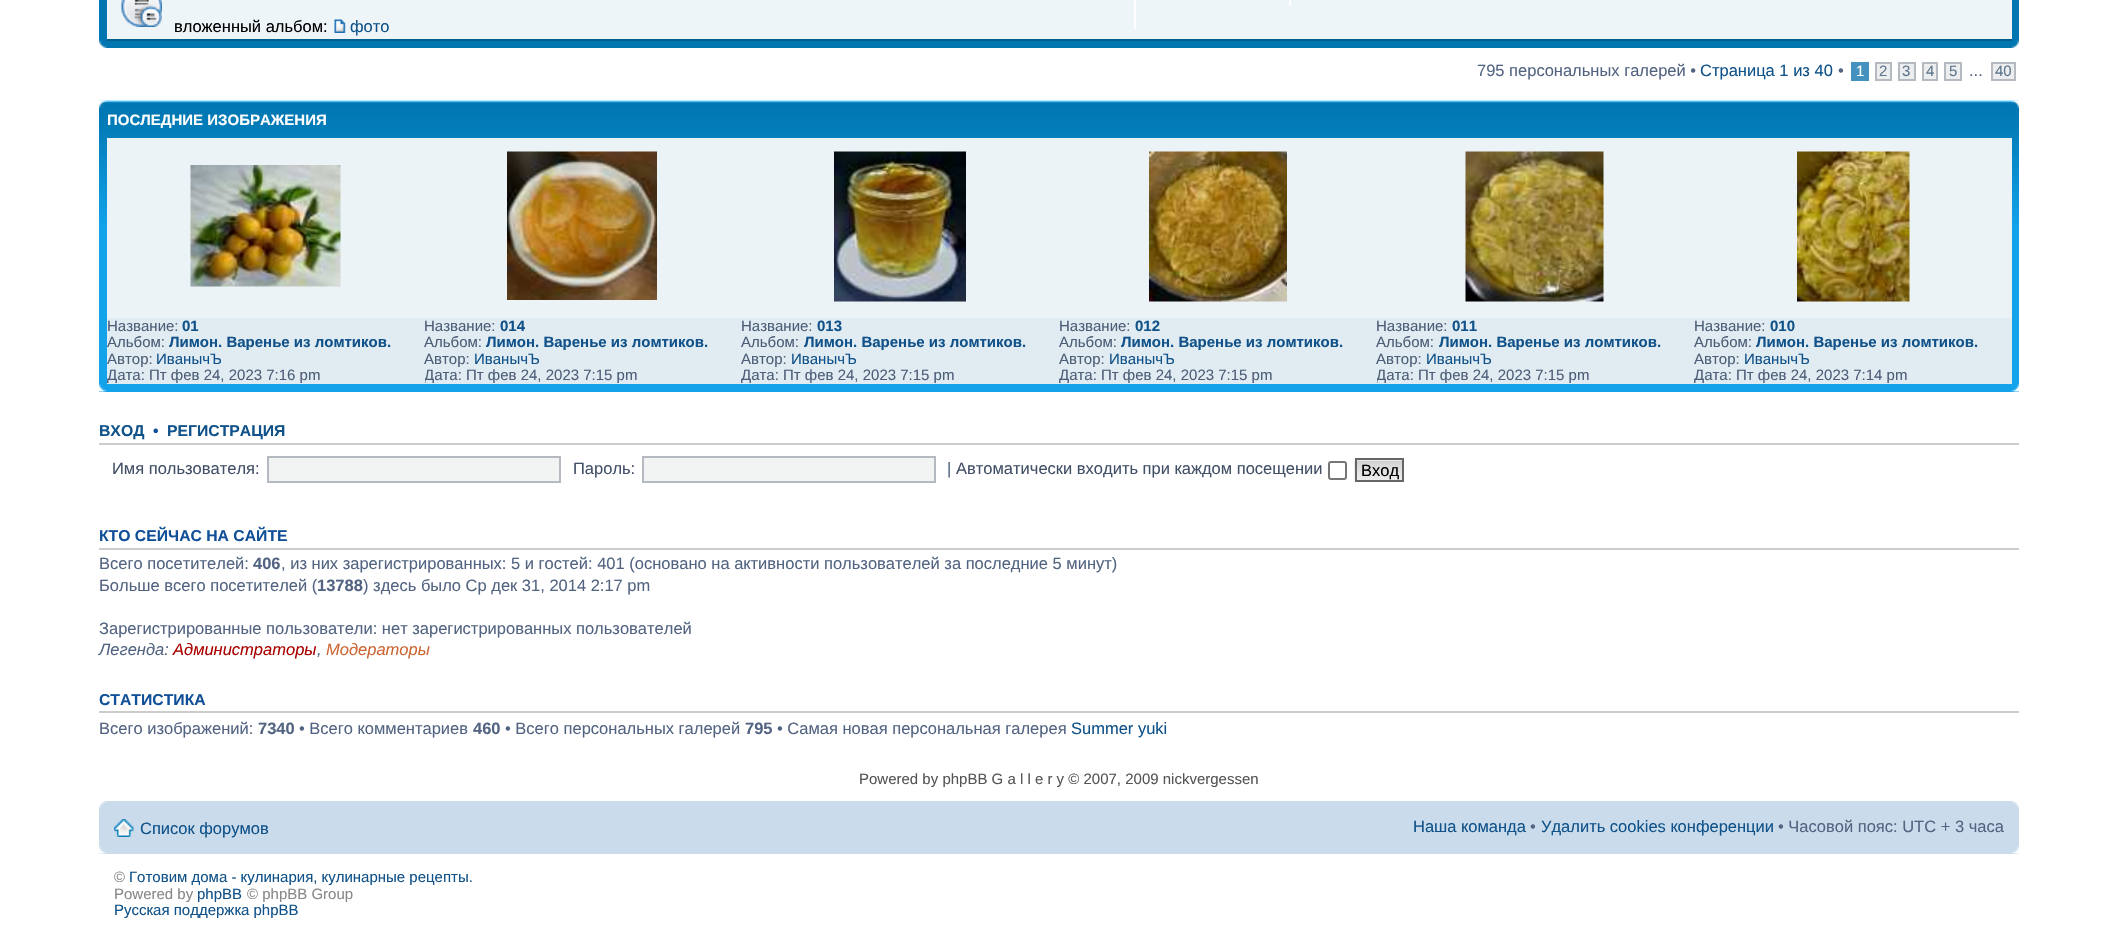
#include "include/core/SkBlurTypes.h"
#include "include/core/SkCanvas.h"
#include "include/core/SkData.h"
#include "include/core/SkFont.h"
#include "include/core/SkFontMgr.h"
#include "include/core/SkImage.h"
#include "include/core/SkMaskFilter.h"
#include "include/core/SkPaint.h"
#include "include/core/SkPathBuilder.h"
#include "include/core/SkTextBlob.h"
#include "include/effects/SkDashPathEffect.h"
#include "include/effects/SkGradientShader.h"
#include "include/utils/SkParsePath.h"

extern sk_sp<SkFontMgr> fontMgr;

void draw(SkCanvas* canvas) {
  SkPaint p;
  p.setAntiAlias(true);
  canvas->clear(SK_ColorWHITE);
  p.setColor(SkColorSetRGB(0, 118, 177));
  canvas->drawRect(SkRect::MakeLTRB(99, 0, 2019, 48), p);
  p.setColor(SkColorSetRGB(238, 245, 249));
  canvas->drawRect(SkRect::MakeLTRB(107, 0, 2012, 39), p);
  p.setColor(SkColorSetRGB(0, 96, 143));
  canvas->drawRect(SkRect::MakeLTRB(107, 39, 2012, 41), p);
  canvas->drawImageRect(SkImages::DeferredFromEncodedData(SkData::MakeFromFileName("images/1.png")), SkRect::MakeLTRB(121, 0, 162, 27), SkSamplingOptions());
  p.setColor(SK_ColorWHITE);
  canvas->drawRect(SkRect::MakeLTRB(1134, 0, 1136, 29), p);
  canvas->drawRect(SkRect::MakeLTRB(1289, 0, 1291, 6), p);
  canvas->drawImageRect(SkImages::DeferredFromEncodedData(SkData::MakeFromFileName("images/2.png")), SkRect::MakeLTRB(334, 19, 346, 33), SkSamplingOptions());
  canvas->drawImageRect(SkImages::DeferredFromEncodedData(SkData::MakeFromFileName("images/3.png")), SkRect::MakeLTRB(99, 40, 107, 48), SkSamplingOptions());
  canvas->drawImageRect(SkImages::DeferredFromEncodedData(SkData::MakeFromFileName("images/4.png")), SkRect::MakeLTRB(2011, 40, 2019, 48), SkSamplingOptions());
  p.setColor(SkColorSetRGB(70, 146, 191));
  canvas->drawRect(SkRect::MakeLTRB(1851, 62, 1869, 81), p);
  p.setColor(SkColorSetRGB(236, 237, 238));
  canvas->drawRect(SkRect::MakeLTRB(1876, 63, 1891, 80), p);
  p.setStyle(SkPaint::kStroke_Style);
  p.setStrokeWidth(2);
  p.setColor(SkColorSetRGB(180, 186, 192));
  canvas->drawRect(SkRect::MakeLTRB(1876, 63, 1891, 80), p);
  p.setStyle(SkPaint::kFill_Style);
  p.setColor(SkColorSetRGB(236, 237, 238));
  canvas->drawRect(SkRect::MakeLTRB(1899, 63, 1915, 80), p);
  p.setStyle(SkPaint::kStroke_Style);
  p.setColor(SkColorSetRGB(180, 186, 192));
  canvas->drawRect(SkRect::MakeLTRB(1899, 63, 1915, 80), p);
  p.setStyle(SkPaint::kFill_Style);
  p.setColor(SkColorSetRGB(236, 237, 238));
  canvas->drawRect(SkRect::MakeLTRB(1923, 63, 1937, 80), p);
  p.setStyle(SkPaint::kStroke_Style);
  p.setColor(SkColorSetRGB(180, 186, 192));
  canvas->drawRect(SkRect::MakeLTRB(1923, 63, 1937, 80), p);
  p.setStyle(SkPaint::kFill_Style);
  p.setColor(SkColorSetRGB(236, 237, 238));
  canvas->drawRect(SkRect::MakeLTRB(1945, 63, 1961, 80), p);
  p.setStyle(SkPaint::kStroke_Style);
  p.setColor(SkColorSetRGB(180, 186, 192));
  canvas->drawRect(SkRect::MakeLTRB(1945, 63, 1961, 80), p);
  p.setStyle(SkPaint::kFill_Style);
  p.setColor(SkColorSetRGB(236, 237, 238));
  canvas->drawRect(SkRect::MakeLTRB(1992, 63, 2015, 80), p);
  p.setStyle(SkPaint::kStroke_Style);
  p.setColor(SkColorSetRGB(180, 186, 192));
  canvas->drawRect(SkRect::MakeLTRB(1992, 63, 2015, 80), p);
  p.setStyle(SkPaint::kFill_Style);
  p.setColor(SkColorSetRGB(18, 163, 235));
  canvas->drawRect(SkRect::MakeLTRB(99, 223, 2019, 392), p);
  canvas->drawImageRect(SkImages::DeferredFromEncodedData(SkData::MakeFromFileName("images/5.png")), SkRect::MakeLTRB(99, 100, 2019, 223), SkSamplingOptions());
  canvas->drawImageRect(SkImages::DeferredFromEncodedData(SkData::MakeFromFileName("images/6.png")), SkRect::MakeLTRB(99, 100, 107, 108), SkSamplingOptions());
  canvas->drawImageRect(SkImages::DeferredFromEncodedData(SkData::MakeFromFileName("images/7.png")), SkRect::MakeLTRB(2011, 100, 2019, 108), SkSamplingOptions());
  p.setColor(SkColorSetRGB(225, 235, 242));
  canvas->drawRect(SkRect::MakeLTRB(107, 318, 2012, 384), p);
  p.setColor(SkColorSetRGB(236, 243, 247));
  canvas->drawRect(SkRect::MakeLTRB(107, 138, 2012, 318), p);
  canvas->drawImageRect(SkImages::DeferredFromEncodedData(SkData::MakeFromFileName("images/8.png")), SkRect::MakeLTRB(190, 165, 341, 287), SkSamplingOptions());
  canvas->drawImageRect(SkImages::DeferredFromEncodedData(SkData::MakeFromFileName("images/9.png")), SkRect::MakeLTRB(507, 151, 657, 300), SkSamplingOptions());
  canvas->drawImageRect(SkImages::DeferredFromEncodedData(SkData::MakeFromFileName("images/10.png")), SkRect::MakeLTRB(834, 151, 966, 302), SkSamplingOptions());
  canvas->drawImageRect(SkImages::DeferredFromEncodedData(SkData::MakeFromFileName("images/11.png")), SkRect::MakeLTRB(1149, 151, 1287, 302), SkSamplingOptions());
  canvas->drawImageRect(SkImages::DeferredFromEncodedData(SkData::MakeFromFileName("images/12.png")), SkRect::MakeLTRB(1465, 151, 1604, 302), SkSamplingOptions());
  canvas->drawImageRect(SkImages::DeferredFromEncodedData(SkData::MakeFromFileName("images/13.png")), SkRect::MakeLTRB(1797, 151, 1910, 302), SkSamplingOptions());
  canvas->drawImageRect(SkImages::DeferredFromEncodedData(SkData::MakeFromFileName("images/14.png")), SkRect::MakeLTRB(99, 384, 107, 392), SkSamplingOptions());
  canvas->drawImageRect(SkImages::DeferredFromEncodedData(SkData::MakeFromFileName("images/15.png")), SkRect::MakeLTRB(2011, 384, 2019, 392), SkSamplingOptions());
  p.setColor(SkColorSetRGB(204, 204, 204));
  canvas->drawRect(SkRect::MakeLTRB(99, 443, 2019, 445), p);
  p.setColor(SkColorSetRGB(242, 243, 243));
  canvas->drawRect(SkRect::MakeLTRB(268, 457, 560, 482), p);
  p.setStyle(SkPaint::kStroke_Style);
  p.setColor(SkColorSetRGB(180, 186, 192));
  canvas->drawRect(SkRect::MakeLTRB(268, 457, 560, 482), p);
  p.setStyle(SkPaint::kFill_Style);
  p.setColor(SkColorSetRGB(242, 243, 243));
  canvas->drawRect(SkRect::MakeLTRB(643, 457, 935, 482), p);
  p.setStyle(SkPaint::kStroke_Style);
  p.setColor(SkColorSetRGB(180, 186, 192));
  canvas->drawRect(SkRect::MakeLTRB(643, 457, 935, 482), p);
  p.setColor(SkColorSetRGB(118, 118, 118));
  canvas->drawRoundRect(SkRect::MakeLTRB(1329, 462, 1346, 479), 2, 2, p);
  canvas->drawImageRect(SkImages::DeferredFromEncodedData(SkData::MakeFromFileName("images/16.png")), SkRect::MakeLTRB(1354, 459, 1402, 482), SkSamplingOptions());
  p.setColor(SkColorSetRGB(102, 102, 102));
  canvas->drawRect(SkRect::MakeLTRB(1356, 459, 1403, 481), p);
  p.setStyle(SkPaint::kFill_Style);
  p.setColor(SkColorSetRGB(204, 204, 204));
  canvas->drawRect(SkRect::MakeLTRB(99, 548, 2019, 550), p);
  canvas->drawRect(SkRect::MakeLTRB(99, 711, 2019, 713), p);
  p.setColor(SkColorSetRGB(202, 220, 235));
  canvas->drawRect(SkRect::MakeLTRB(99, 801, 2019, 854), p);
  canvas->drawImageRect(SkImages::DeferredFromEncodedData(SkData::MakeFromFileName("images/17.png")), SkRect::MakeLTRB(99, 801, 107, 809), SkSamplingOptions());
  canvas->drawImageRect(SkImages::DeferredFromEncodedData(SkData::MakeFromFileName("images/18.png")), SkRect::MakeLTRB(2011, 801, 2019, 809), SkSamplingOptions());
  canvas->drawImageRect(SkImages::DeferredFromEncodedData(SkData::MakeFromFileName("images/19.png")), SkRect::MakeLTRB(114, 819, 134, 837), SkSamplingOptions());
  canvas->drawImageRect(SkImages::DeferredFromEncodedData(SkData::MakeFromFileName("images/20.png")), SkRect::MakeLTRB(99, 846, 107, 854), SkSamplingOptions());
  canvas->drawImageRect(SkImages::DeferredFromEncodedData(SkData::MakeFromFileName("images/21.png")), SkRect::MakeLTRB(2011, 846, 2019, 854), SkSamplingOptions());
  SkFont font1(fontMgr->matchFamilyStyle("Liberation Sans", SkFontStyle::Normal()), 16.5f);
  font1.setSubpixel(true);
  p.setColor(SK_ColorBLACK);
  canvas->drawString("вложенный альбом:", 174, 32, font1, p);
  p.setColor(SkColorSetRGB(16, 82, 137));
  canvas->drawString("фото", 350, 32, font1, p);
  p.setColor(SkColorSetRGB(83, 100, 130));
  canvas->drawString("795 персональных галерей •", 1477, 76, font1, p);
  p.setColor(SkColorSetRGB(16, 82, 137));
  canvas->drawString("Страница 1 из 40", 1700, 76, font1, p);
  p.setColor(SkColorSetRGB(83, 100, 130));
  canvas->drawString("•", 1838, 76, font1, p);
  SkFont font2(fontMgr->matchFamilyStyle("Liberation Sans", SkFontStyle::Normal()), 15);
  font2.setSubpixel(true);
  p.setColor(SK_ColorWHITE);
  canvas->drawString("1", 1856, 76, font2, p);
  p.setColor(SkColorSetRGB(92, 117, 140));
  canvas->drawString("2", 1879, 76, font2, p);
  canvas->drawString("3", 1902, 76, font2, p);
  canvas->drawString("4", 1926, 76, font2, p);
  canvas->drawString("5", 1949, 76, font2, p);
  canvas->drawString("40", 1995, 76, font2, p);
  p.setColor(SkColorSetRGB(83, 100, 130));
  canvas->drawString("...", 1969, 76, font1, p);
  SkFont font3(fontMgr->matchFamilyStyle("Liberation Sans", SkFontStyle::Bold()), 15);
  font3.setSubpixel(true);
  p.setColor(SK_ColorWHITE);
  canvas->drawString("ПОСЛЕДНИЕ ИЗОБРАЖЕНИЯ", 107, 125, font3, p);
  p.setColor(SkColorSetRGB(76, 93, 119));
  canvas->drawString("Название:", 107, 331, font2, p);
  p.setColor(SkColorSetRGB(16, 82, 137));
  canvas->drawString("01", 182, 331, font3, p);
  p.setColor(SkColorSetRGB(76, 93, 119));
  canvas->drawString("Альбом:", 107, 347, font2, p);
  p.setColor(SkColorSetRGB(16, 82, 137));
  canvas->drawString("Лимон. Варенье из ломтиков.", 169, 347, font3, p);
  p.setColor(SkColorSetRGB(76, 93, 119));
  canvas->drawString("Автор:", 107, 364, font2, p);
  p.setColor(SkColorSetRGB(16, 82, 137));
  canvas->drawString("ИванычЪ", 156, 364, font2, p);
  canvas->save();
  canvas->clipRect(SkRect::MakeLTRB(107, 318, 425, 384));
  p.setColor(SkColorSetRGB(76, 93, 119));
  canvas->drawString("Дата: Пт фев 24, 2023 7:16 pm", 107, 380, font2, p);
  canvas->restore();
  canvas->drawString("Название:", 424, 331, font2, p);
  p.setColor(SkColorSetRGB(16, 82, 137));
  canvas->drawString("014", 500, 331, font3, p);
  p.setColor(SkColorSetRGB(76, 93, 119));
  canvas->drawString("Альбом:", 424, 347, font2, p);
  p.setColor(SkColorSetRGB(16, 82, 137));
  canvas->drawString("Лимон. Варенье из ломтиков.", 486, 347, font3, p);
  p.setColor(SkColorSetRGB(76, 93, 119));
  canvas->drawString("Автор:", 424, 364, font2, p);
  p.setColor(SkColorSetRGB(16, 82, 137));
  canvas->drawString("ИванычЪ", 474, 364, font2, p);
  canvas->save();
  canvas->clipRect(SkRect::MakeLTRB(425, 318, 741, 384));
  p.setColor(SkColorSetRGB(76, 93, 119));
  canvas->drawString("Дата: Пт фев 24, 2023 7:15 pm", 424, 380, font2, p);
  canvas->restore();
  canvas->drawString("Название:", 741, 331, font2, p);
  p.setColor(SkColorSetRGB(16, 82, 137));
  canvas->drawString("013", 817, 331, font3, p);
  p.setColor(SkColorSetRGB(76, 93, 119));
  canvas->drawString("Альбом:", 741, 347, font2, p);
  p.setColor(SkColorSetRGB(16, 82, 137));
  canvas->drawString("Лимон. Варенье из ломтиков.", 804, 347, font3, p);
  p.setColor(SkColorSetRGB(76, 93, 119));
  canvas->drawString("Автор:", 741, 364, font2, p);
  p.setColor(SkColorSetRGB(16, 82, 137));
  canvas->drawString("ИванычЪ", 791, 364, font2, p);
  p.setColor(SkColorSetRGB(76, 93, 119));
  canvas->drawString("Дата: Пт фев 24, 2023 7:15 pm", 741, 380, font2, p);
  canvas->drawString("Название:", 1059, 331, font2, p);
  p.setColor(SkColorSetRGB(16, 82, 137));
  canvas->drawString("012", 1135, 331, font3, p);
  p.setColor(SkColorSetRGB(76, 93, 119));
  canvas->drawString("Альбом:", 1059, 347, font2, p);
  p.setColor(SkColorSetRGB(16, 82, 137));
  canvas->drawString("Лимон. Варенье из ломтиков.", 1121, 347, font3, p);
  p.setColor(SkColorSetRGB(76, 93, 119));
  canvas->drawString("Автор:", 1059, 364, font2, p);
  p.setColor(SkColorSetRGB(16, 82, 137));
  canvas->drawString("ИванычЪ", 1109, 364, font2, p);
  p.setColor(SkColorSetRGB(76, 93, 119));
  canvas->drawString("Дата: Пт фев 24, 2023 7:15 pm", 1059, 380, font2, p);
  canvas->drawString("Название:", 1376, 331, font2, p);
  p.setColor(SkColorSetRGB(16, 82, 137));
  canvas->drawString("011", 1452, 331, font3, p);
  p.setColor(SkColorSetRGB(76, 93, 119));
  canvas->drawString("Альбом:", 1376, 347, font2, p);
  p.setColor(SkColorSetRGB(16, 82, 137));
  canvas->drawString("Лимон. Варенье из ломтиков.", 1439, 347, font3, p);
  p.setColor(SkColorSetRGB(76, 93, 119));
  canvas->drawString("Автор:", 1376, 364, font2, p);
  p.setColor(SkColorSetRGB(16, 82, 137));
  canvas->drawString("ИванычЪ", 1426, 364, font2, p);
  canvas->save();
  canvas->clipRect(SkRect::MakeLTRB(1377, 318, 1694, 384));
  p.setColor(SkColorSetRGB(76, 93, 119));
  canvas->drawString("Дата: Пт фев 24, 2023 7:15 pm", 1376, 380, font2, p);
  canvas->restore();
  canvas->drawString("Название:", 1694, 331, font2, p);
  p.setColor(SkColorSetRGB(16, 82, 137));
  canvas->drawString("010", 1770, 331, font3, p);
  p.setColor(SkColorSetRGB(76, 93, 119));
  canvas->drawString("Альбом:", 1694, 347, font2, p);
  p.setColor(SkColorSetRGB(16, 82, 137));
  canvas->drawString("Лимон. Варенье из ломтиков.", 1756, 347, font3, p);
  p.setColor(SkColorSetRGB(76, 93, 119));
  canvas->drawString("Автор:", 1694, 364, font2, p);
  p.setColor(SkColorSetRGB(16, 82, 137));
  canvas->drawString("ИванычЪ", 1744, 364, font2, p);
  p.setColor(SkColorSetRGB(76, 93, 119));
  canvas->drawString("Дата: Пт фев 24, 2023 7:14 pm", 1694, 380, font2, p);
  SkFont font4(fontMgr->matchFamilyStyle("Liberation Sans", SkFontStyle::Bold()), 15.75f);
  font4.setSubpixel(true);
  p.setColor(SkColorSetRGB(16, 82, 137));
  canvas->drawString("ВХОД", 99, 436, font4, p);
  p.setColor(SkColorSetRGB(17, 80, 152));
  canvas->drawString("•", 153, 436, font4, p);
  p.setColor(SkColorSetRGB(16, 82, 137));
  canvas->drawString("РЕГИСТРАЦИЯ", 167, 436, font4, p);
  p.setColor(SkColorSetRGB(66, 80, 103));
  canvas->drawString("Имя пользователя:", 112, 474, font1, p);
  canvas->drawString("Пароль:", 573, 474, font1, p);
  p.setColor(SkColorSetRGB(83, 100, 130));
  canvas->drawString("|", 947, 474, font1, p);
  p.setColor(SkColorSetRGB(66, 80, 103));
  canvas->drawString("Автоматически входить при каждом посещении", 956, 474, font1, p);
  p.setColor(SK_ColorBLACK);
  canvas->drawString("Вход", 1361, 476, font1, p);
  p.setColor(SkColorSetRGB(17, 80, 152));
  canvas->drawString("КТО СЕЙЧАС НА САЙТЕ", 99, 541, font4, p);
  p.setColor(SkColorSetRGB(83, 100, 130));
  canvas->drawString("Всего посетителей:", 99, 569, font1, p);
  SkFont font5(fontMgr->matchFamilyStyle("Liberation Sans", SkFontStyle::Bold()), 16.5f);
  font5.setSubpixel(true);
  canvas->drawString("406", 253, 569, font5, p);
  canvas->drawString(", из них зарегистрированных: 5 и гостей: 401 (основано на активности пользователей за последние 5 минут)", 281, 569, font1, p);
  canvas->drawString("Больше всего посетителей (", 99, 591, font1, p);
  canvas->drawString("13788", 317, 591, font5, p);
  canvas->drawString(") здесь было Ср дек 31, 2014 2:17 pm", 363, 591, font1, p);
  canvas->drawString("Зарегистрированные пользователи: нет зарегистрированных пользователей", 99, 634, font1, p);
  SkFont font6(fontMgr->matchFamilyStyle("Liberation Sans", SkFontStyle::Italic()), 16.5f);
  font6.setSubpixel(true);
  canvas->drawString("Легенда:", 99, 655, font6, p);
  p.setColor(SkColorSetRGB(170, 0, 0));
  canvas->drawString("Администраторы", 173, 655, font6, p);
  p.setColor(SkColorSetRGB(83, 100, 130));
  canvas->drawString(",", 317, 655, font6, p);
  p.setColor(SkColorSetRGB(204, 102, 51));
  canvas->drawString("Модераторы", 326, 655, font6, p);
  p.setColor(SkColorSetRGB(17, 80, 152));
  canvas->drawString("СТАТИСТИКА", 99, 705, font4, p);
  p.setColor(SkColorSetRGB(83, 100, 130));
  canvas->drawString("Всего изображений:", 99, 734, font1, p);
  canvas->drawString("7340", 258, 734, font5, p);
  canvas->drawString("• Всего комментариев", 299, 734, font1, p);
  canvas->drawString("460", 473, 734, font5, p);
  canvas->drawString("• Всего персональных галерей", 505, 734, font1, p);
  canvas->drawString("795", 745, 734, font5, p);
  canvas->drawString("• Самая новая персональная галерея", 777, 734, font1, p);
  p.setColor(SkColorSetRGB(16, 82, 137));
  canvas->drawString("Summer yuki", 1071, 734, font1, p);
  p.setColor(SkColorSetRGB(85, 85, 85));
  canvas->drawString("Powered by phpBB G a l l e r y © 2007, 2009 nickvergessen", 859, 784, font2, p);
  p.setColor(SkColorSetRGB(16, 82, 137));
  canvas->drawString("Список форумов", 140, 834, font1, p);
  canvas->drawString("Наша команда", 1413, 832, font1, p);
  p.setColor(SkColorSetRGB(83, 100, 130));
  canvas->drawString("•", 1530, 832, font1, p);
  p.setColor(SkColorSetRGB(16, 82, 137));
  canvas->drawString("Удалить cookies конференции", 1541, 832, font1, p);
  p.setColor(SkColorSetRGB(83, 100, 130));
  canvas->drawString("• Часовой пояс: UTC + 3 часа", 1778, 832, font1, p);
  p.setColor(SkColorSetRGB(136, 136, 136));
  canvas->drawString("©", 114, 882, font2, p);
  p.setColor(SkColorSetRGB(16, 82, 137));
  canvas->drawString("Готовим дома - кулинария, кулинарные рецепты.", 129, 882, font2, p);
  p.setColor(SkColorSetRGB(136, 136, 136));
  canvas->drawString("Powered by", 114, 899, font2, p);
  p.setColor(SkColorSetRGB(16, 82, 137));
  canvas->drawString("phpBB", 197, 899, font2, p);
  p.setColor(SkColorSetRGB(136, 136, 136));
  canvas->drawString("© phpBB Group", 247, 899, font2, p);
  p.setColor(SkColorSetRGB(16, 82, 137));
  canvas->drawString("Русская поддержка phpBB", 114, 915, font2, p);
}
